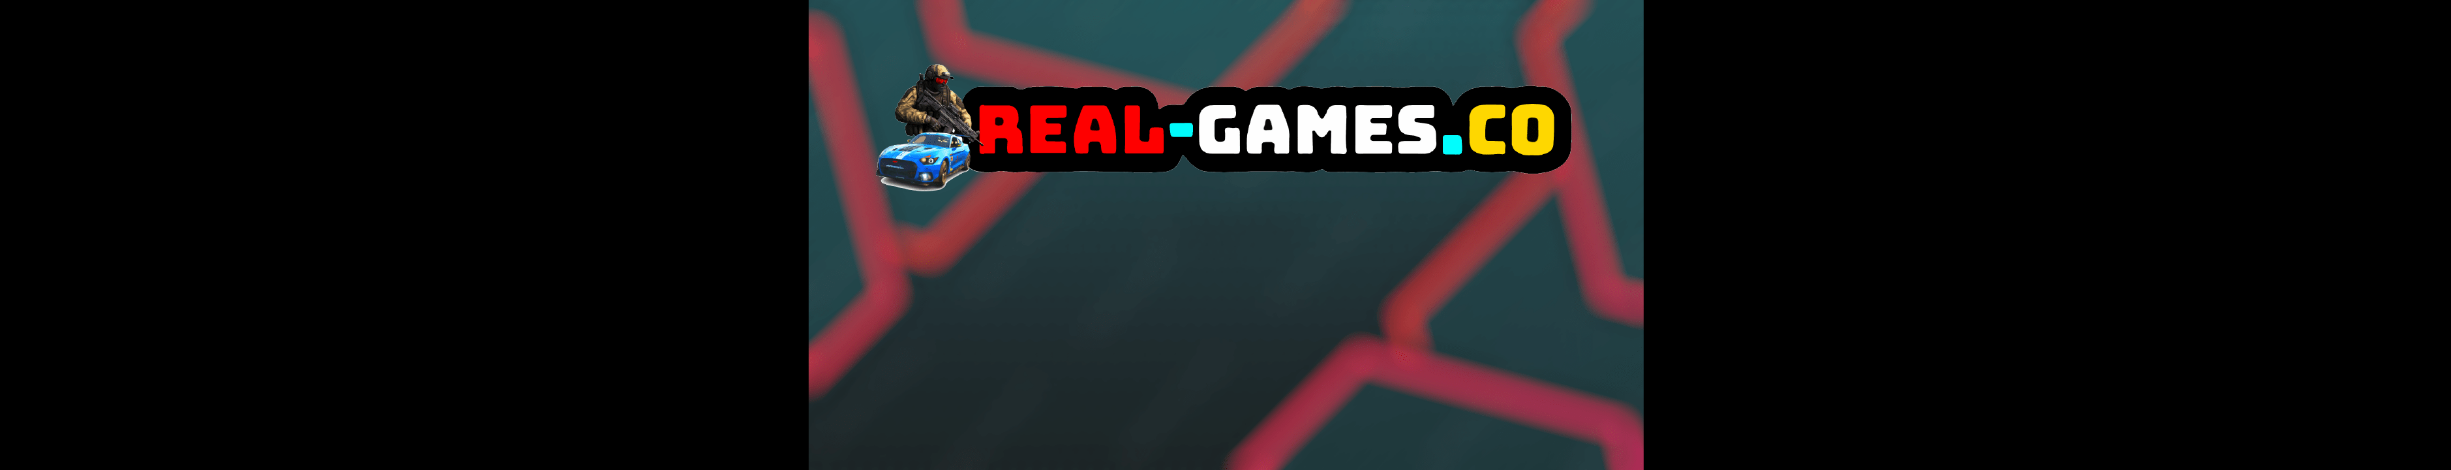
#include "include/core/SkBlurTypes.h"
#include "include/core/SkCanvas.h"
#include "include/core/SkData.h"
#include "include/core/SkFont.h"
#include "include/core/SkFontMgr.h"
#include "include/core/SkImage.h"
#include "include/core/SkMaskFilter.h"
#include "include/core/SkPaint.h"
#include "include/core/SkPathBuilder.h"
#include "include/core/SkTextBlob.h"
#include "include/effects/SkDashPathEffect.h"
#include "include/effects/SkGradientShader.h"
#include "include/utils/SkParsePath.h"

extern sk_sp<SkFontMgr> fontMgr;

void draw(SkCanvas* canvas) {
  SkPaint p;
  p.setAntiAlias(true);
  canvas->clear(SK_ColorBLACK);
  canvas->drawImageRect(SkImages::DeferredFromEncodedData(SkData::MakeFromFileName("images/1.png")), SkRect::MakeLTRB(808, 0, 1644, 470), SkSamplingOptions());
}
